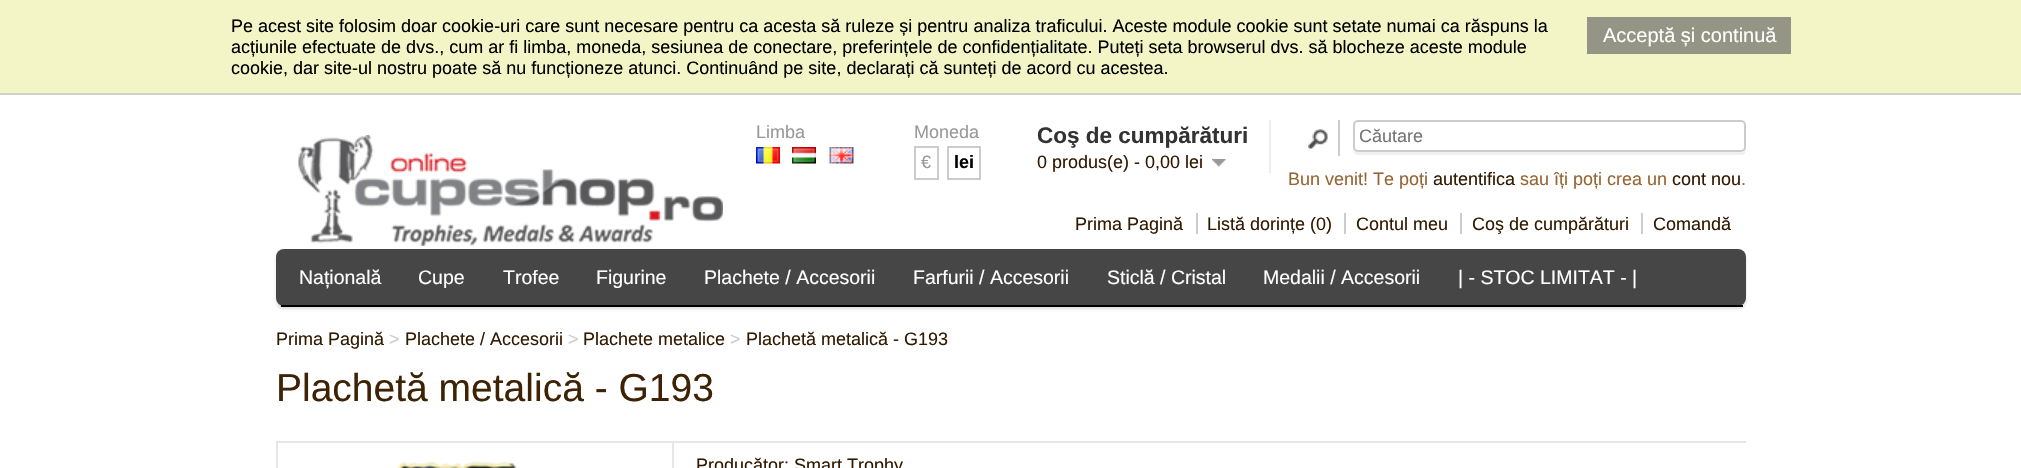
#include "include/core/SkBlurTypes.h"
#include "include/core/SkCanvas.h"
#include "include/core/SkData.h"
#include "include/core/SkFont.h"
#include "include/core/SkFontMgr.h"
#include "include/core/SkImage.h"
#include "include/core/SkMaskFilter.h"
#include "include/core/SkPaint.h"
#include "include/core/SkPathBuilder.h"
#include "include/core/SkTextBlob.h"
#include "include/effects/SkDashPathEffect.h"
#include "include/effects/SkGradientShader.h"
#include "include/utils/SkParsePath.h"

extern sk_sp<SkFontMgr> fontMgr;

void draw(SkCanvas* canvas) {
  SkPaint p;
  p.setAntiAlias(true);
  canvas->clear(SK_ColorWHITE);
  p.setColor(SkColorSetRGB(243, 245, 198));
  canvas->drawRect(SkRect::MakeLTRB(0, 0, 2021, 93), p);
  p.setColor(SkColorSetRGB(208, 209, 196));
  canvas->drawRect(SkRect::MakeLTRB(0, 93, 2021, 95), p);
  p.setColor(SkColorSetRGB(148, 149, 132));
  canvas->drawRect(SkRect::MakeLTRB(1587, 17, 1791, 54), p);
  canvas->drawImageRect(SkImages::DeferredFromEncodedData(SkData::MakeFromFileName("images/1.png")), SkRect::MakeLTRB(298, 135, 723, 246), SkSamplingOptions());
  canvas->drawImageRect(SkImages::DeferredFromEncodedData(SkData::MakeFromFileName("images/2.png")), SkRect::MakeLTRB(756, 147, 780, 164), SkSamplingOptions());
  canvas->drawImageRect(SkImages::DeferredFromEncodedData(SkData::MakeFromFileName("images/3.png")), SkRect::MakeLTRB(792, 147, 816, 164), SkSamplingOptions());
  canvas->drawImageRect(SkImages::DeferredFromEncodedData(SkData::MakeFromFileName("images/4.png")), SkRect::MakeLTRB(829, 147, 854, 164), SkSamplingOptions());
  p.setStyle(SkPaint::kStroke_Style);
  p.setStrokeWidth(2);
  p.setColor(SkColorSetRGB(204, 204, 204));
  canvas->drawRect(SkRect::MakeLTRB(915, 147, 938, 179), p);
  canvas->drawRect(SkRect::MakeLTRB(948, 147, 980, 179), p);
  p.setStyle(SkPaint::kFill_Style);
  p.setColor(SkColorSetRGB(238, 238, 238));
  canvas->drawRect(SkRect::MakeLTRB(1269, 120, 1271, 173), p);
  canvas->drawImageRect(SkImages::DeferredFromEncodedData(SkData::MakeFromFileName("images/5.png")), SkRect::MakeLTRB(1212, 159, 1226, 167), SkSamplingOptions());
  canvas->drawImageRect(SkImages::DeferredFromEncodedData(SkData::MakeFromFileName("images/6.png")), SkRect::MakeLTRB(1308, 129, 1328, 149), SkSamplingOptions());
  p.setColor(SkColorSetRGB(204, 204, 204));
  canvas->drawRect(SkRect::MakeLTRB(1338, 120, 1340, 156), p);
  p.setColor(SkColorSetRGB(240, 240, 240));
  canvas->drawPath(SkPathBuilder().moveTo(1353, 147).cubicTo(1353, 151, 1353, 155, 1358, 155).lineTo(1741, 155).cubicTo(1746, 155, 1746, 151, 1746, 147).cubicTo(1746, 149, 1744, 152, 1742, 152).lineTo(1358, 152).cubicTo(1355, 152, 1353, 149, 1353, 147).close().detach(), p);
  p.setColor(SK_ColorWHITE);
  canvas->drawRoundRect(SkRect::MakeLTRB(1354, 121, 1745, 151), 4, 4, p);
  p.setStyle(SkPaint::kStroke_Style);
  p.setColor(SkColorSetRGB(204, 204, 204));
  canvas->drawRoundRect(SkRect::MakeLTRB(1354, 121, 1745, 151), 4, 4, p);
  p.setStyle(SkPaint::kFill_Style);
  canvas->drawRect(SkRect::MakeLTRB(1196, 213, 1198, 234), p);
  canvas->drawRect(SkRect::MakeLTRB(1344, 213, 1346, 234), p);
  canvas->drawRect(SkRect::MakeLTRB(1460, 213, 1462, 234), p);
  canvas->drawRect(SkRect::MakeLTRB(1641, 213, 1643, 234), p);
  p.setColor(SkColorSetRGB(221, 221, 221));
  p.setMaskFilter(SkMaskFilter::MakeBlur(kNormal_SkBlurStyle, 1.5f));
  canvas->drawRoundRect(SkRect::MakeLTRB(276, 252, 1746, 309), 8, 8, p);
  p.setMaskFilter(nullptr);
  p.setColor(SkColorSetRGB(70, 70, 71));
  canvas->drawRoundRect(SkRect::MakeLTRB(276, 249, 1746, 306), 8, 8, p);
  p.setColor(SK_ColorBLACK);
  canvas->drawRect(SkRect::MakeLTRB(281, 305, 1743, 307), p);
  p.setStyle(SkPaint::kStroke_Style);
  p.setColor(SkColorSetRGB(231, 231, 231));
  canvas->drawRect(SkRect::MakeLTRB(277, 442, 673, 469), p);
  canvas->drawImageRect(SkImages::DeferredFromEncodedData(SkData::MakeFromFileName("images/7.png")), SkRect::MakeLTRB(396, 461, 518, 468), SkSamplingOptions());
  p.setStyle(SkPaint::kFill_Style);
  canvas->drawRect(SkRect::MakeLTRB(674, 441, 1746, 443), p);
  SkFont font1(fontMgr->matchFamilyStyle("Liberation Sans", SkFontStyle::Normal()), 18);
  font1.setSubpixel(true);
  p.setColor(SK_ColorBLACK);
  canvas->drawString("Pe acest site folosim doar cookie-uri care sunt necesare pentru ca acesta să ruleze și pentru analiza traficului. Aceste module cookie sunt setate numai ca răspuns la", 231, 32, font1, p);
  SkFont font2(fontMgr->matchFamilyStyle("Liberation Sans", SkFontStyle::Normal()), 20);
  font2.setSubpixel(true);
  p.setColor(SK_ColorWHITE);
  canvas->drawString("Acceptă și continuă", 1603, 42, font2, p);
  p.setColor(SK_ColorBLACK);
  canvas->drawString("acțiunile efectuate de dvs., cum ar fi limba, moneda, sesiunea de conectare, preferințele de confidențialitate. Puteți seta browserul dvs. să blocheze aceste module", 231, 53, font1, p);
  canvas->drawString("cookie, dar site-ul nostru poate să nu funcționeze atunci. Continuând pe site, declarați că sunteți de acord cu acestea.", 231, 74, font1, p);
  p.setColor(SkColorSetRGB(153, 153, 153));
  canvas->drawString("Limba", 756, 138, font1, p);
  canvas->drawString("Moneda", 914, 138, font1, p);
  canvas->drawString("€", 921, 168, font1, p);
  SkFont font3(fontMgr->matchFamilyStyle("Liberation Sans", SkFontStyle::Bold()), 18);
  font3.setSubpixel(true);
  p.setColor(SK_ColorBLACK);
  canvas->drawString("lei", 954, 168, font3, p);
  SkFont font4(fontMgr->matchFamilyStyle("Liberation Sans", SkFontStyle::Bold()), 22.5f);
  font4.setSubpixel(true);
  p.setColor(SkColorSetRGB(51, 51, 51));
  canvas->drawString("Coş de cumpărături", 1037, 143, font4, p);
  p.setColor(SkColorSetRGB(50, 26, 1));
  canvas->drawString("0 produs(e) - 0,00 lei", 1037, 168, font1, p);
  p.setColor(SkColorSetRGB(117, 117, 117));
  canvas->drawString("Căutare", 1359, 142, font1, p);
  p.setColor(SkColorSetRGB(149, 102, 51));
  canvas->drawString("Bun venit! Te poți", 1288, 185, font1, p);
  p.setColor(SkColorSetRGB(50, 26, 1));
  canvas->drawString("autentifica", 1433, 185, font1, p);
  p.setColor(SkColorSetRGB(149, 102, 51));
  canvas->drawString("sau îți poți crea un", 1520, 185, font1, p);
  p.setColor(SkColorSetRGB(50, 26, 1));
  canvas->drawString("cont nou", 1672, 185, font1, p);
  p.setColor(SkColorSetRGB(149, 102, 51));
  canvas->drawString(".", 1741, 185, font1, p);
  p.setColor(SkColorSetRGB(50, 26, 1));
  canvas->drawString("Prima Pagină", 1075, 230, font1, p);
  canvas->drawString("Listă dorințe (0)", 1207, 230, font1, p);
  canvas->drawString("Contul meu", 1356, 230, font1, p);
  canvas->drawString("Coş de cumpărături", 1472, 230, font1, p);
  canvas->drawString("Comandă", 1653, 230, font1, p);
  SkFont font5(fontMgr->matchFamilyStyle("Liberation Sans", SkFontStyle::Normal()), 19.5f);
  font5.setSubpixel(true);
  p.setColor(SK_ColorWHITE);
  canvas->drawString("Națională", 299, 284, font5, p);
  canvas->drawString("Cupe", 418, 284, font5, p);
  canvas->drawString("Trofee", 503, 284, font5, p);
  canvas->drawString("Figurine", 596, 284, font5, p);
  canvas->drawString("Plachete / Accesorii", 704, 284, font5, p);
  canvas->drawString("Farfurii / Accesorii", 913, 284, font5, p);
  canvas->drawString("Sticlă / Cristal", 1107, 284, font5, p);
  canvas->drawString("Medalii / Accesorii", 1263, 284, font5, p);
  canvas->drawString("| - STOC LIMITAT - |", 1458, 284, font5, p);
  p.setColor(SkColorSetRGB(50, 26, 1));
  canvas->drawString("Prima Pagină", 276, 345, font1, p);
  p.setColor(SkColorSetRGB(204, 204, 204));
  canvas->drawString(">", 389, 345, font1, p);
  p.setColor(SkColorSetRGB(50, 26, 1));
  canvas->drawString("Plachete / Accesorii", 405, 345, font1, p);
  p.setColor(SkColorSetRGB(204, 204, 204));
  canvas->drawString(">", 568, 345, font1, p);
  p.setColor(SkColorSetRGB(50, 26, 1));
  canvas->drawString("Plachete metalice", 583, 345, font1, p);
  p.setColor(SkColorSetRGB(204, 204, 204));
  canvas->drawString(">", 730, 345, font1, p);
  p.setColor(SkColorSetRGB(50, 26, 1));
  canvas->drawString("Plachetă metalică - G193", 746, 345, font1, p);
  SkFont font6(fontMgr->matchFamilyStyle("Liberation Sans", SkFontStyle::Normal()), 39);
  font6.setSubpixel(true);
  p.setColor(SkColorSetRGB(62, 34, 4));
  canvas->drawString("Plachetă metalică - G193", 276, 401, font6, p);
  p.setColor(SkColorSetRGB(50, 26, 1));
  canvas->drawString("Producător: Smart Trophy", 696, 471, font1, p);
}
